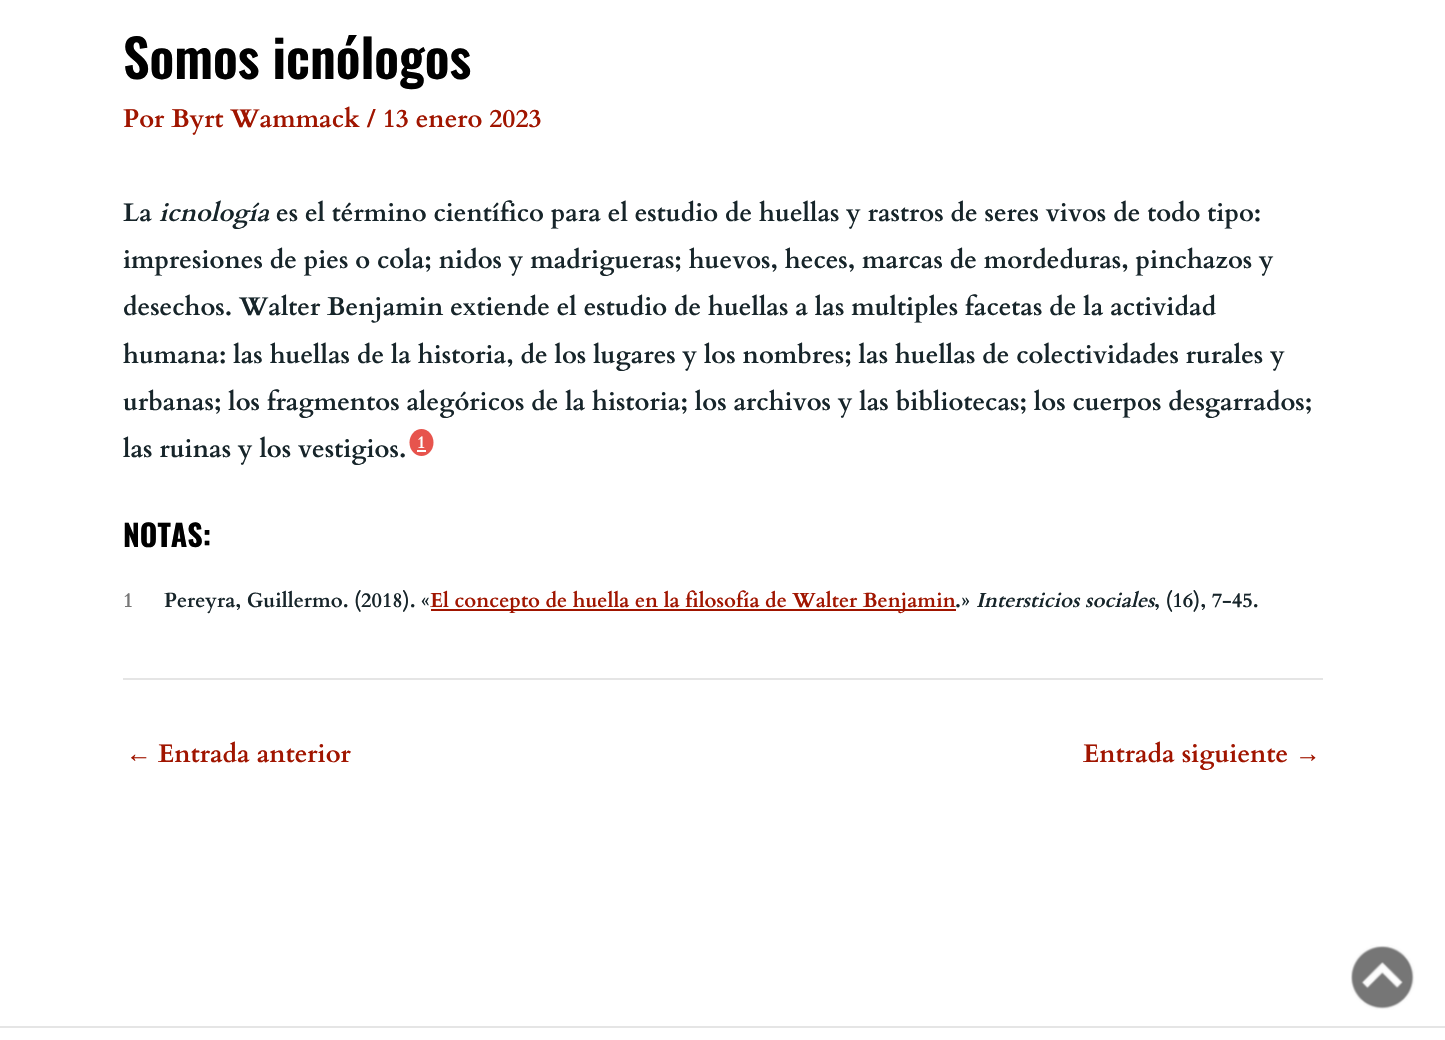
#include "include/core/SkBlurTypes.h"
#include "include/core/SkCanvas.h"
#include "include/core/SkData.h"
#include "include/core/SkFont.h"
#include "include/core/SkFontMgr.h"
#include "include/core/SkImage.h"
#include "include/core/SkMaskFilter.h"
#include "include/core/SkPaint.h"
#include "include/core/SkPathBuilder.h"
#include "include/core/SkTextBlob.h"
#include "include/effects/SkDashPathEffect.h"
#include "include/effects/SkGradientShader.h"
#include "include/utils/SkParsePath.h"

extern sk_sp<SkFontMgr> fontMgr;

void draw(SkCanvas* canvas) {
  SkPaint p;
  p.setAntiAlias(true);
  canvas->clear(SK_ColorWHITE);
  p.setColor(SkColorSetRGB(231, 84, 77));
  canvas->drawOval(SkRect::MakeLTRB(409.5f, 429, 433.5f, 456), p);
  p.setColor(SK_ColorWHITE);
  canvas->drawRect(SkRect::MakeLTRB(417, 450, 426, 452), p);
  p.setColor(SkColorSetRGB(160, 21, 0));
  canvas->drawRect(SkRect::MakeLTRB(431, 609, 956, 611), p);
  p.setColor(SkColorSetRGB(229, 229, 229));
  canvas->drawRect(SkRect::MakeLTRB(123, 678, 1323, 680), p);
  canvas->drawRect(SkRect::MakeLTRB(0, 1026, 1445, 1028), p);
  canvas->drawImageRect(SkImages::DeferredFromEncodedData(SkData::MakeFromFileName("images/1.png")), SkRect::MakeLTRB(1350, 945, 1415, 1010), SkSamplingOptions());
  SkFont font1(fontMgr->matchFamilyStyle("Oswald", SkFontStyle(600, SkFontStyle::kNormal_Width, SkFontStyle::kUpright_Slant)), 52.5f);
  font1.setSubpixel(true);
  p.setColor(SK_ColorBLACK);
  canvas->drawString("Somos icnólogos", 123, 79, font1, p);
  SkFont font2(fontMgr->matchFamilyStyle("Cardo", SkFontStyle::Bold()), 25.5f);
  font2.setSubpixel(true);
  p.setColor(SkColorSetRGB(160, 21, 0));
  canvas->drawString("Por Byrt Wammack / 13 enero 2023", 123, 127, font2, p);
  p.setColor(SkColorSetRGB(23, 37, 42));
  canvas->drawString("La", 123, 221, font2, p);
  SkFont font3(fontMgr->matchFamilyStyle("Cardo", SkFontStyle::BoldItalic()), 25.5f);
  font3.setSubpixel(true);
  canvas->drawString("icnología", 159, 221, font3, p);
  canvas->drawString("es el término científico para el estudio de huellas y rastros de seres vivos de todo tipo:", 276, 221, font2, p);
  canvas->drawString("impresiones de pies o cola; nidos y madrigueras; huevos, heces, marcas de mordeduras, pinchazos y", 123, 268, font2, p);
  canvas->drawString("desechos. Walter Benjamin extiende el estudio de huellas a las multiples facetas de la actividad", 123, 315, font2, p);
  canvas->drawString("humana: las huellas de la historia, de los lugares y los nombres; las huellas de colectividades rurales y", 123, 363, font2, p);
  canvas->drawString("urbanas; los fragmentos alegóricos de la historia; los archivos y las bibliotecas; los cuerpos desgarrados;", 123, 410, font2, p);
  canvas->drawString("las ruinas y los vestigios.", 123, 457, font2, p);
  SkFont font4(fontMgr->matchFamilyStyle("Cardo", SkFontStyle::Bold()), 17);
  font4.setSubpixel(true);
  p.setColor(SK_ColorWHITE);
  canvas->drawString("1", 417, 448, font4, p);
  SkFont font5(fontMgr->matchFamilyStyle("Oswald", SkFontStyle::Bold()), 30);
  font5.setSubpixel(true);
  p.setColor(SK_ColorBLACK);
  canvas->drawString("NOTAS:", 123, 547, font5, p);
  SkFont font6(fontMgr->matchFamilyStyle("Cardo", SkFontStyle::Bold()), 20.4f);
  font6.setSubpixel(true);
  p.setColor(SkColorSetRGB(119, 119, 119));
  canvas->drawString("1", 123, 607, font6, p);
  p.setColor(SkColorSetRGB(23, 37, 42));
  canvas->drawString("Pereyra, Guillermo. (2018). «", 164, 607, font6, p);
  p.setColor(SkColorSetRGB(160, 21, 0));
  canvas->drawString("El concepto de huella en la filosofía de Walter Benjamin", 430, 607, font6, p);
  p.setColor(SkColorSetRGB(23, 37, 42));
  canvas->drawString(".»", 955, 607, font6, p);
  SkFont font7(fontMgr->matchFamilyStyle("Cardo", SkFontStyle::BoldItalic()), 20.4f);
  font7.setSubpixel(true);
  canvas->drawString("Intersticios sociales", 976, 607, font7, p);
  canvas->drawString(", (16), 7-45.", 1154, 607, font6, p);
  SkFont font8(fontMgr->matchFamilyStyle("Liberation Serif", SkFontStyle::Bold()), 25.5f);
  font8.setSubpixel(true);
  p.setColor(SkColorSetRGB(160, 21, 0));
  canvas->drawString("←", 126, 762, font8, p);
  canvas->drawString("Entrada anterior", 158, 762, font2, p);
  canvas->drawString("Entrada siguiente", 1083, 762, font2, p);
  canvas->drawString("→", 1295, 762, font8, p);
}
